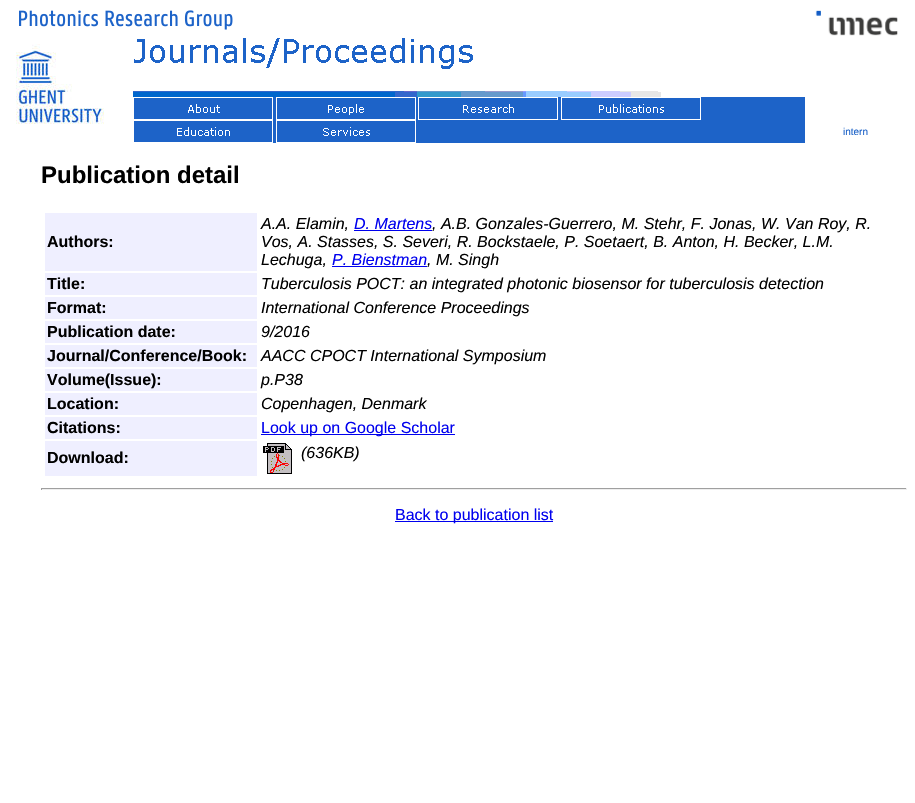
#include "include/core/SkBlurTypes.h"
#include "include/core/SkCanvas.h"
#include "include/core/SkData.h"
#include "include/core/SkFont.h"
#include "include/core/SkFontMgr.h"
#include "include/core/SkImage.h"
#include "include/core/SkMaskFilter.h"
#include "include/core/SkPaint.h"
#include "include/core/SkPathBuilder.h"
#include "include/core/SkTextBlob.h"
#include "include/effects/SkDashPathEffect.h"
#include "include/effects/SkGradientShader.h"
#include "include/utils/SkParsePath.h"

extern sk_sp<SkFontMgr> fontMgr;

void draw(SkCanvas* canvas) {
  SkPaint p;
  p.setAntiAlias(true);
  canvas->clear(SK_ColorWHITE);
  canvas->drawImageRect(SkImages::DeferredFromEncodedData(SkData::MakeFromFileName("images/1.png")), SkRect::MakeLTRB(19, 10, 233, 30), SkSamplingOptions());
  canvas->drawImageRect(SkImages::DeferredFromEncodedData(SkData::MakeFromFileName("images/2.png")), SkRect::MakeLTRB(16, 44, 104, 124), SkSamplingOptions());
  canvas->drawImageRect(SkImages::DeferredFromEncodedData(SkData::MakeFromFileName("images/3.png")), SkRect::MakeLTRB(133, 38, 661, 97), SkSamplingOptions());
  p.setColor(SkColorSetRGB(29, 99, 200));
  canvas->drawRect(SkRect::MakeLTRB(273, 97, 805, 143), p);
  canvas->drawImageRect(SkImages::DeferredFromEncodedData(SkData::MakeFromFileName("images/4.png")), SkRect::MakeLTRB(133, 97, 273, 120), SkSamplingOptions());
  canvas->drawImageRect(SkImages::DeferredFromEncodedData(SkData::MakeFromFileName("images/5.png")), SkRect::MakeLTRB(276, 97, 416, 120), SkSamplingOptions());
  canvas->drawImageRect(SkImages::DeferredFromEncodedData(SkData::MakeFromFileName("images/6.png")), SkRect::MakeLTRB(418, 97, 558, 120), SkSamplingOptions());
  canvas->drawImageRect(SkImages::DeferredFromEncodedData(SkData::MakeFromFileName("images/7.png")), SkRect::MakeLTRB(561, 97, 701, 120), SkSamplingOptions());
  canvas->drawImageRect(SkImages::DeferredFromEncodedData(SkData::MakeFromFileName("images/8.png")), SkRect::MakeLTRB(133, 120, 273, 143), SkSamplingOptions());
  canvas->drawImageRect(SkImages::DeferredFromEncodedData(SkData::MakeFromFileName("images/9.png")), SkRect::MakeLTRB(276, 120, 416, 143), SkSamplingOptions());
  canvas->drawImageRect(SkImages::DeferredFromEncodedData(SkData::MakeFromFileName("images/10.png")), SkRect::MakeLTRB(815, 10, 898, 36), SkSamplingOptions());
  p.setColor(SkColorSetRGB(239, 239, 255));
  canvas->drawRect(SkRect::MakeLTRB(45, 213, 257, 271), p);
  p.setColor(SkColorSetRGB(0, 0, 238));
  canvas->drawRect(SkRect::MakeLTRB(354, 230, 432, 231), p);
  canvas->drawRect(SkRect::MakeLTRB(332, 266, 427, 267), p);
  p.setColor(SkColorSetRGB(239, 239, 255));
  canvas->drawRect(SkRect::MakeLTRB(45, 273, 257, 295), p);
  canvas->drawRect(SkRect::MakeLTRB(45, 297, 257, 319), p);
  canvas->drawRect(SkRect::MakeLTRB(45, 321, 257, 343), p);
  canvas->drawRect(SkRect::MakeLTRB(45, 345, 257, 367), p);
  canvas->drawRect(SkRect::MakeLTRB(45, 369, 257, 391), p);
  canvas->drawRect(SkRect::MakeLTRB(45, 393, 257, 415), p);
  canvas->drawRect(SkRect::MakeLTRB(45, 417, 257, 439), p);
  p.setColor(SkColorSetRGB(0, 0, 238));
  canvas->drawRect(SkRect::MakeLTRB(261, 434, 455, 435), p);
  p.setColor(SkColorSetRGB(239, 239, 255));
  canvas->drawRect(SkRect::MakeLTRB(45, 441, 257, 476), p);
  canvas->drawImageRect(SkImages::DeferredFromEncodedData(SkData::MakeFromFileName("images/11.png")), SkRect::MakeLTRB(263, 443, 292, 474), SkSamplingOptions());
  p.setColor(SkColorSetRGB(159, 159, 159));
  canvas->drawRect(SkRect::MakeLTRB(41, 488, 907, 489), p);
  p.setColor(SkColorSetRGB(238, 238, 238));
  canvas->drawRect(SkRect::MakeLTRB(906, 488, 907, 490), p);
  canvas->drawRect(SkRect::MakeLTRB(41, 489, 907, 490), p);
  p.setColor(SkColorSetRGB(159, 159, 159));
  canvas->drawRect(SkRect::MakeLTRB(41, 488, 42, 490), p);
  p.setColor(SkColorSetRGB(0, 0, 238));
  canvas->drawRect(SkRect::MakeLTRB(395, 521, 553, 522), p);
  SkFont font1(fontMgr->matchFamilyStyle("Liberation Sans", SkFontStyle::Normal()), 10);
  font1.setSubpixel(true);
  p.setColor(SkColorSetRGB(29, 99, 200));
  canvas->drawString("intern", 843, 135, font1, p);
  SkFont font2(fontMgr->matchFamilyStyle("Liberation Sans", SkFontStyle::Bold()), 24);
  font2.setSubpixel(true);
  p.setColor(SK_ColorBLACK);
  canvas->drawString("Publication detail", 41, 183, font2, p);
  SkFont font3(fontMgr->matchFamilyStyle("Liberation Sans", SkFontStyle::Bold()), 16);
  font3.setSubpixel(true);
  canvas->drawString("Authors:", 47, 247, font3, p);
  SkFont font4(fontMgr->matchFamilyStyle("Liberation Sans", SkFontStyle::Italic()), 16);
  font4.setSubpixel(true);
  canvas->drawString("A.A. Elamin,", 261, 229, font4, p);
  p.setColor(SkColorSetRGB(0, 0, 238));
  canvas->drawString("D. Martens", 354, 229, font4, p);
  p.setColor(SK_ColorBLACK);
  canvas->drawString(", A.B. Gonzales-Guerrero, M. Stehr, F. Jonas, W. Van Roy, R.", 432, 229, font4, p);
  canvas->drawString("Vos, A. Stasses, S. Severi, R. Bockstaele, P. Soetaert, B. Anton, H. Becker, L.M.", 261, 247, font4, p);
  canvas->drawString("Lechuga,", 261, 265, font4, p);
  p.setColor(SkColorSetRGB(0, 0, 238));
  canvas->drawString("P. Bienstman", 332, 265, font4, p);
  p.setColor(SK_ColorBLACK);
  canvas->drawString(", M. Singh", 427, 265, font4, p);
  canvas->drawString("Title:", 47, 289, font3, p);
  canvas->drawString("Tuberculosis POCT: an integrated photonic biosensor for tuberculosis detection", 261, 289, font4, p);
  canvas->drawString("Format:", 47, 313, font3, p);
  canvas->drawString("International Conference Proceedings", 261, 313, font4, p);
  canvas->drawString("Publication date:", 47, 337, font3, p);
  canvas->drawString("9/2016", 261, 337, font4, p);
  canvas->drawString("Journal/Conference/Book:", 47, 361, font3, p);
  canvas->drawString("AACC CPOCT International Symposium", 261, 361, font4, p);
  canvas->drawString("Volume(Issue):", 47, 385, font3, p);
  canvas->drawString("p.P38", 261, 385, font4, p);
  canvas->drawString("Location:", 47, 409, font3, p);
  canvas->drawString("Copenhagen, Denmark", 261, 409, font4, p);
  canvas->drawString("Citations:", 47, 433, font3, p);
  SkFont font5(fontMgr->matchFamilyStyle("Liberation Sans", SkFontStyle::Normal()), 16);
  font5.setSubpixel(true);
  p.setColor(SkColorSetRGB(0, 0, 238));
  canvas->drawString("Look up on Google Scholar", 261, 433, font5, p);
  p.setColor(SK_ColorBLACK);
  canvas->drawString("Download:", 47, 463, font3, p);
  canvas->drawString("(636KB)", 301, 458, font4, p);
  p.setColor(SkColorSetRGB(0, 0, 238));
  canvas->drawString("Back to publication list", 395, 520, font5, p);
}
